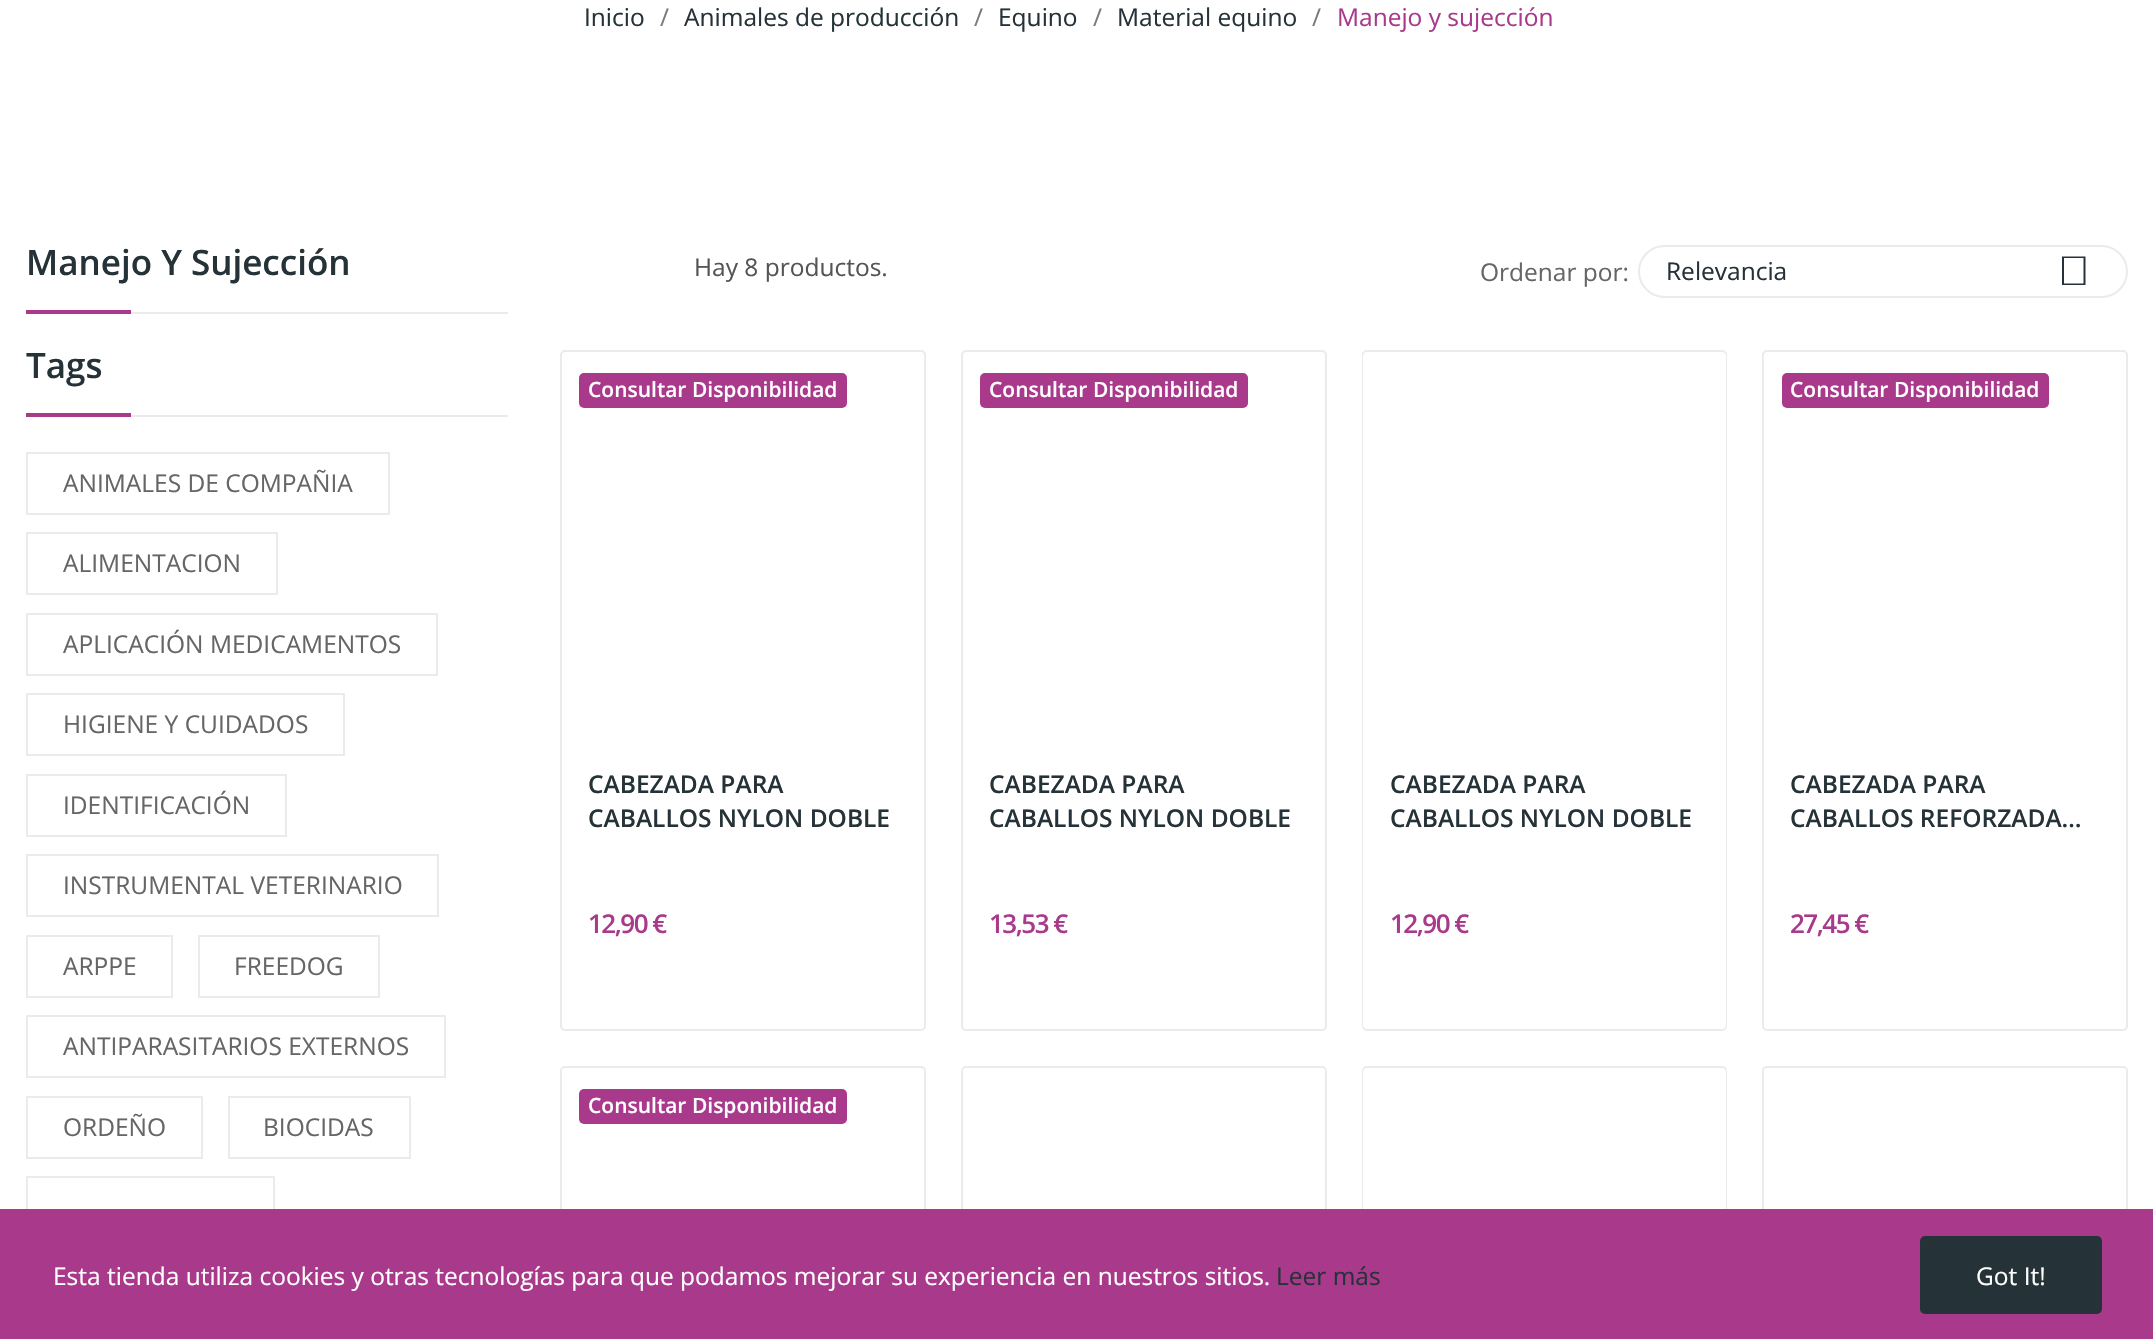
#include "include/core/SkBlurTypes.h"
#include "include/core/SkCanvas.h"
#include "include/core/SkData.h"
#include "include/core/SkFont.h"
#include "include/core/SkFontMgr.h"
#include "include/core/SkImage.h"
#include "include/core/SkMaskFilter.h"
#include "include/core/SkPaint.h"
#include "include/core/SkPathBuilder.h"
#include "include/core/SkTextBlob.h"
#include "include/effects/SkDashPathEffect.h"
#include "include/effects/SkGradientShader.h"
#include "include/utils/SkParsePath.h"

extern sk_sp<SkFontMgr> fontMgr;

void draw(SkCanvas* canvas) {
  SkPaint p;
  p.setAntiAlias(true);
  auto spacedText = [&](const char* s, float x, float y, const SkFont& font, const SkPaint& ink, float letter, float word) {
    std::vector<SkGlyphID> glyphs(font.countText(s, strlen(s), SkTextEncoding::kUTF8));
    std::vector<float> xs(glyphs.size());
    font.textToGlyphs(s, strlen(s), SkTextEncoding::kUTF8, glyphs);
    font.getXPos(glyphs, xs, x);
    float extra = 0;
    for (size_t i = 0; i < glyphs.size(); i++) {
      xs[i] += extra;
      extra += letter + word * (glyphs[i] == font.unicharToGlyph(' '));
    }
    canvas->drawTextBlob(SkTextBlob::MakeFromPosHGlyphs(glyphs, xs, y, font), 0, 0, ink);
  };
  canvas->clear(SK_ColorWHITE);
  p.setColor(SkColorSetRGB(235, 235, 235));
  canvas->drawRect(SkRect::MakeLTRB(131, 312, 508, 314), p);
  p.setColor(SkColorSetRGB(169, 57, 139));
  canvas->drawRect(SkRect::MakeLTRB(26, 310, 131, 314), p);
  p.setColor(SkColorSetRGB(235, 235, 235));
  canvas->drawRect(SkRect::MakeLTRB(131, 415, 508, 417), p);
  p.setColor(SkColorSetRGB(169, 57, 139));
  canvas->drawRect(SkRect::MakeLTRB(26, 413, 131, 417), p);
  p.setStyle(SkPaint::kStroke_Style);
  p.setStrokeWidth(2);
  p.setColor(SkColorSetRGB(235, 235, 235));
  canvas->drawRect(SkRect::MakeLTRB(27, 453, 389, 514), p);
  canvas->drawRect(SkRect::MakeLTRB(27, 533, 277, 594), p);
  canvas->drawRect(SkRect::MakeLTRB(27, 614, 437, 675), p);
  canvas->drawRect(SkRect::MakeLTRB(27, 694, 344, 755), p);
  canvas->drawRect(SkRect::MakeLTRB(27, 775, 286, 836), p);
  canvas->drawRect(SkRect::MakeLTRB(27, 855, 438, 916), p);
  canvas->drawRect(SkRect::MakeLTRB(27, 936, 172, 997), p);
  canvas->drawRect(SkRect::MakeLTRB(199, 936, 379, 997), p);
  canvas->drawRect(SkRect::MakeLTRB(27, 1016, 445, 1077), p);
  canvas->drawRect(SkRect::MakeLTRB(27, 1097, 202, 1158), p);
  canvas->drawRect(SkRect::MakeLTRB(229, 1097, 410, 1158), p);
  canvas->drawRect(SkRect::MakeLTRB(27, 1177, 274, 1238), p);
  canvas->drawRoundRect(SkRect::MakeLTRB(1639, 246, 2127, 297), 25.5f, 25.5f, p);
  p.setStyle(SkPaint::kFill_Style);
  p.setColor(SkColorSetRGB(37, 50, 55));
  canvas->drawPath(SkPathBuilder().moveTo(2062, 256.5f).lineTo(2085.5f, 256.5f).lineTo(2085.5f, 285).lineTo(2062, 285).close().moveTo(2064, 258).lineTo(2064, 283.5f).lineTo(2083.5f, 283.5f).lineTo(2083.5f, 258).close().detach(), p);
  p.setStyle(SkPaint::kStroke_Style);
  p.setColor(SkColorSetRGB(235, 235, 235));
  canvas->drawRoundRect(SkRect::MakeLTRB(561, 351, 925, 1030), 4, 4, p);
  p.setStyle(SkPaint::kFill_Style);
  p.setColor(SkColorSetRGB(169, 57, 139));
  canvas->drawRoundRect(SkRect::MakeLTRB(579, 373, 847, 408), 5, 5, p);
  p.setStyle(SkPaint::kStroke_Style);
  p.setColor(SkColorSetRGB(235, 235, 235));
  canvas->drawRoundRect(SkRect::MakeLTRB(962, 351, 1326, 1030), 4, 4, p);
  p.setStyle(SkPaint::kFill_Style);
  p.setColor(SkColorSetRGB(169, 57, 139));
  canvas->drawRoundRect(SkRect::MakeLTRB(980, 373, 1248, 408), 5, 5, p);
  p.setStyle(SkPaint::kStroke_Style);
  p.setColor(SkColorSetRGB(235, 235, 235));
  canvas->drawRoundRect(SkRect::MakeLTRB(1363, 351, 1726, 1030), 4, 4, p);
  p.setStyle(SkPaint::kFill_Style);
  p.setColor(SK_ColorWHITE);
  canvas->drawPath(SkPathBuilder().moveTo(1367, 352).lineTo(1722, 352).cubicTo(1724, 352, 1726, 354, 1726, 356).lineTo(1726, 714).lineTo(1363, 714).lineTo(1363, 356).cubicTo(1363, 354, 1365, 352, 1367, 352).close().detach(), p);
  canvas->drawPath(SkPathBuilder().moveTo(1363, 714).lineTo(1726, 714).lineTo(1726, 1025).cubicTo(1726, 1027, 1724, 1029, 1722, 1029).lineTo(1367, 1029).cubicTo(1365, 1029, 1363, 1027, 1363, 1025).close().detach(), p);
  p.setStyle(SkPaint::kStroke_Style);
  p.setColor(SkColorSetRGB(235, 235, 235));
  canvas->drawRoundRect(SkRect::MakeLTRB(1763, 351, 2127, 1030), 4, 4, p);
  p.setStyle(SkPaint::kFill_Style);
  p.setColor(SkColorSetRGB(169, 57, 139));
  canvas->drawRoundRect(SkRect::MakeLTRB(1782, 373, 2049, 408), 5, 5, p);
  p.setStyle(SkPaint::kStroke_Style);
  p.setColor(SkColorSetRGB(235, 235, 235));
  canvas->drawRoundRect(SkRect::MakeLTRB(561, 1067, 925, 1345), 4, 4, p);
  p.setStyle(SkPaint::kFill_Style);
  p.setColor(SkColorSetRGB(169, 57, 139));
  canvas->drawRoundRect(SkRect::MakeLTRB(579, 1089, 847, 1124), 5, 5, p);
  p.setStyle(SkPaint::kStroke_Style);
  p.setColor(SkColorSetRGB(235, 235, 235));
  canvas->drawRoundRect(SkRect::MakeLTRB(962, 1067, 1326, 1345), 4, 4, p);
  canvas->drawRoundRect(SkRect::MakeLTRB(1363, 1067, 1726, 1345), 4, 4, p);
  p.setStyle(SkPaint::kFill_Style);
  p.setColor(SK_ColorWHITE);
  canvas->drawPath(SkPathBuilder().moveTo(1367, 1068).lineTo(1722, 1068).cubicTo(1724, 1068, 1726, 1070, 1726, 1072).lineTo(1726, 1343).lineTo(1363, 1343).lineTo(1363, 1072).cubicTo(1363, 1070, 1365, 1068, 1367, 1068).close().detach(), p);
  p.setStyle(SkPaint::kStroke_Style);
  p.setColor(SkColorSetRGB(235, 235, 235));
  canvas->drawRoundRect(SkRect::MakeLTRB(1763, 1067, 2127, 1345), 4, 4, p);
  p.setStyle(SkPaint::kFill_Style);
  p.setColor(SkColorSetRGB(169, 57, 139));
  canvas->drawRect(SkRect::MakeLTRB(0, 1209, 2153, 1339), p);
  p.setColor(SkColorSetRGB(37, 50, 55));
  canvas->drawRoundRect(SkRect::MakeLTRB(1922, 1238, 2100, 1312), 3, 3, p);
  p.setStyle(SkPaint::kStroke_Style);
  p.setStrokeWidth(4);
  canvas->drawRoundRect(SkRect::MakeLTRB(1922, 1238, 2100, 1312), 3, 3, p);
  SkFont font1(fontMgr->matchFamilyStyle("Open Sans", SkFontStyle::Normal()), 24.5f);
  font1.setSubpixel(true);
  p.setStyle(SkPaint::kFill_Style);
  canvas->drawString("Inicio", 584, 26, font1, p);
  p.setColor(SkColorSetRGB(122, 122, 122));
  canvas->drawString("/", 660, 26, font1, p);
  p.setColor(SkColorSetRGB(37, 50, 55));
  canvas->drawString("Animales de producción", 684, 26, font1, p);
  p.setColor(SkColorSetRGB(122, 122, 122));
  canvas->drawString("/", 974, 26, font1, p);
  p.setColor(SkColorSetRGB(37, 50, 55));
  canvas->drawString("Equino", 998, 26, font1, p);
  p.setColor(SkColorSetRGB(122, 122, 122));
  canvas->drawString("/", 1093, 26, font1, p);
  p.setColor(SkColorSetRGB(37, 50, 55));
  canvas->drawString("Material equino", 1117, 26, font1, p);
  p.setColor(SkColorSetRGB(122, 122, 122));
  canvas->drawString("/", 1312, 26, font1, p);
  p.setColor(SkColorSetRGB(169, 57, 139));
  canvas->drawString("Manejo y sujección", 1337, 26, font1, p);
  SkFont font2(fontMgr->matchFamilyStyle("Open Sans", SkFontStyle(600, SkFontStyle::kNormal_Width, SkFontStyle::kUpright_Slant)), 35);
  font2.setSubpixel(true);
  p.setColor(SkColorSetRGB(37, 50, 55));
  canvas->drawString("Manejo Y Sujección", 26, 275, font2, p);
  canvas->drawString("Tags", 26, 378, font2, p);
  p.setColor(SkColorSetRGB(102, 102, 102));
  canvas->drawString("ANIMALES DE COMPAÑIA", 63, 492, font1, p);
  canvas->drawString("ALIMENTACION", 63, 572, font1, p);
  canvas->drawString("APLICACIÓN MEDICAMENTOS", 63, 653, font1, p);
  canvas->drawString("HIGIENE Y CUIDADOS", 63, 733, font1, p);
  canvas->drawString("IDENTIFICACIÓN", 63, 814, font1, p);
  canvas->drawString("INSTRUMENTAL VETERINARIO", 63, 894, font1, p);
  canvas->drawString("ARPPE", 63, 975, font1, p);
  canvas->drawString("FREEDOG", 234, 975, font1, p);
  canvas->drawString("ANTIPARASITARIOS EXTERNOS", 63, 1055, font1, p);
  canvas->drawString("ORDEÑO", 63, 1136, font1, p);
  canvas->drawString("BIOCIDAS", 263, 1136, font1, p);
  p.setColor(SkColorSetRGB(85, 85, 85));
  canvas->drawString("Hay 8 productos.", 694, 276, font1, p);
  p.setColor(SkColorSetRGB(102, 102, 102));
  canvas->drawString("Ordenar por:", 1480, 281, font1, p);
  p.setColor(SkColorSetRGB(37, 50, 55));
  canvas->drawString("Relevancia", 1666, 280, font1, p);
  SkFont font3(fontMgr->matchFamilyStyle("Open Sans", SkFontStyle(600, SkFontStyle::kNormal_Width, SkFontStyle::kUpright_Slant)), 21);
  font3.setSubpixel(true);
  p.setColor(SK_ColorWHITE);
  canvas->drawString("Consultar Disponibilidad", 588, 397, font3, p);
  SkFont font4(fontMgr->matchFamilyStyle("Open Sans", SkFontStyle(600, SkFontStyle::kNormal_Width, SkFontStyle::kUpright_Slant)), 24.5f);
  font4.setSubpixel(true);
  p.setColor(SkColorSetRGB(37, 50, 55));
  canvas->drawString("CABEZADA PARA", 588, 793, font4, p);
  canvas->drawString("CABALLOS NYLON DOBLE", 588, 827, font4, p);
  SkFont font5(fontMgr->matchFamilyStyle("Open Sans", SkFontStyle(600, SkFontStyle::kNormal_Width, SkFontStyle::kUpright_Slant)), 26);
  font5.setSubpixel(true);
  p.setColor(SkColorSetRGB(169, 57, 139));
  spacedText("12,90 €", 588, 933, font5, p, -1.5f, 0);
  p.setColor(SK_ColorWHITE);
  canvas->drawString("Consultar Disponibilidad", 989, 397, font3, p);
  p.setColor(SkColorSetRGB(37, 50, 55));
  canvas->drawString("CABEZADA PARA", 989, 793, font4, p);
  canvas->drawString("CABALLOS NYLON DOBLE", 989, 827, font4, p);
  p.setColor(SkColorSetRGB(169, 57, 139));
  spacedText("13,53 €", 989, 933, font5, p, -1.5f, 0);
  p.setColor(SkColorSetRGB(37, 50, 55));
  canvas->drawString("CABEZADA PARA", 1390, 793, font4, p);
  canvas->drawString("CABALLOS NYLON DOBLE", 1390, 827, font4, p);
  p.setColor(SkColorSetRGB(169, 57, 139));
  spacedText("12,90 €", 1390, 933, font5, p, -1.5f, 0);
  p.setColor(SK_ColorWHITE);
  canvas->drawString("Consultar Disponibilidad", 1790, 397, font3, p);
  p.setColor(SkColorSetRGB(37, 50, 55));
  canvas->drawString("CABEZADA PARA", 1790, 793, font4, p);
  canvas->drawString("CABALLOS REFORZADA…", 1790, 827, font4, p);
  p.setColor(SkColorSetRGB(169, 57, 139));
  spacedText("27,45 €", 1790, 933, font5, p, -1.5f, 0);
  p.setColor(SK_ColorWHITE);
  canvas->drawString("Consultar Disponibilidad", 588, 1113, font3, p);
  canvas->drawString("Esta tienda utiliza cookies y otras tecnologías para que podamos mejorar su experiencia en nuestros sitios.", 53, 1285, font1, p);
  p.setColor(SkColorSetRGB(37, 50, 55));
  canvas->drawString("Leer más", 1276, 1285, font1, p);
  p.setColor(SK_ColorWHITE);
  canvas->drawString("Got It!", 1976, 1285, font1, p);
}
